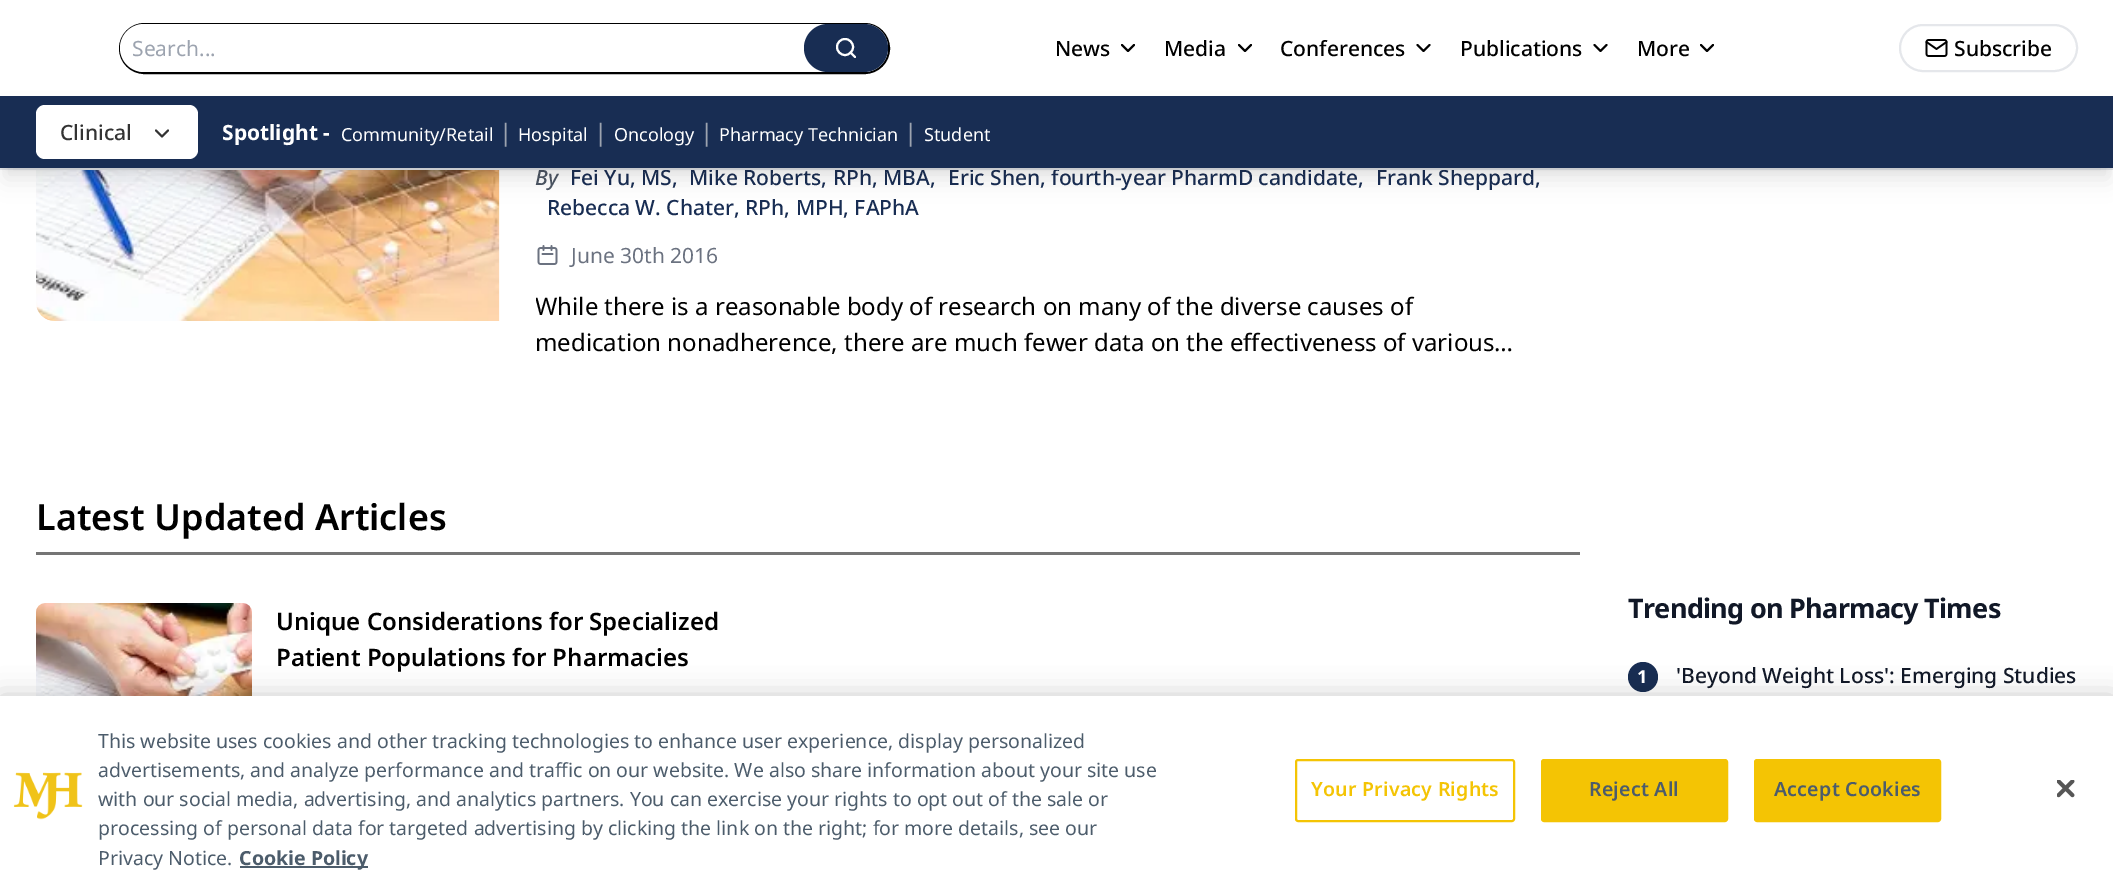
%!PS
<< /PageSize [2113 887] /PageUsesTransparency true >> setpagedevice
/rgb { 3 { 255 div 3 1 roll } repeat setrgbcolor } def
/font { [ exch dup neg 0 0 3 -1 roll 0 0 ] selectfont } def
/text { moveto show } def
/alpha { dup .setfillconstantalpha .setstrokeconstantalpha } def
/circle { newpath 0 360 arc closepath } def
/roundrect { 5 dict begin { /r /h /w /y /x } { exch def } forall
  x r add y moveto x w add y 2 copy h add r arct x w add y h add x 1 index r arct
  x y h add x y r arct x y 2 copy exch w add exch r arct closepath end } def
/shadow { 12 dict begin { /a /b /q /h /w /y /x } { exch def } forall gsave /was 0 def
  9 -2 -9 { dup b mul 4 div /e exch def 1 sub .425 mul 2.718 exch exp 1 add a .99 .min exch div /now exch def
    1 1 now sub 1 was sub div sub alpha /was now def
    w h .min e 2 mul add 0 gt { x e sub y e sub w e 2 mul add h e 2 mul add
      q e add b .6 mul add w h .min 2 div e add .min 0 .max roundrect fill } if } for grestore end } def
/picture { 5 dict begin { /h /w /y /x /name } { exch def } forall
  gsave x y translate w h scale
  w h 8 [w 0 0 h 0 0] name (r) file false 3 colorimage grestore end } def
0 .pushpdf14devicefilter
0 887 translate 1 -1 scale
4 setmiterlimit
255 255 255 rgb
0 0 2113 887 rectfill
0 0 0 rgb
2 setlinewidth
120 24 769 49 24.5 roundrect stroke
255 255 255 rgb
120 24 768 48 24 roundrect fill
24 45 83 rgb
804 24 84 48 24 roundrect fill
255 255 255 rgb
845 47 8 circle stroke
1 setlinecap
1 setlinejoin
855 57 moveto -4.5 -4.5 rlineto stroke
0 0 0 rgb
1122 45 moveto 6 6 rlineto 6 -6 rlineto stroke
1239 45 moveto 6 6 rlineto 6 -6 rlineto stroke
1417.5 45 moveto 6 6 rlineto 6 -6 rlineto stroke
1594.5 45 moveto 6 6 rlineto 6 -6 rlineto stroke
1701 45 moveto 6 6 rlineto 6 -6 rlineto stroke
229 231 235 rgb
0 setlinecap
0 setlinejoin
1900 25 177 46 23 roundrect stroke
(img_01.rgb) 1925 39 23 18 picture
(img_02.rgb) 36 170 464 151 picture
(img_03.rgb) 537 245 21 20 picture
117 117 117 rgb
36 552 1544 3 rectfill
(img_04.rgb) 36 603 216 93 picture
24 45 83 rgb
1643 677 15 circle fill
0 0 0 rgb
0 696 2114 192 0 13.5 0.2 shadow
255 255 255 rgb
0 696 2113 191 rectfill
(img_05.rgb) 13 772 70 48 picture
76 92 107 rgb
240 866 128 2 rectfill
244 196 4 rgb
1296 760 218 61 2 roundrect stroke
1542 760 185 61 2 roundrect gsave fill grestore
stroke
1755 760 185 61 2 roundrect gsave fill grestore
stroke
(img_06.rgb) 2057 780 18 18 picture
/NotoSans-Regular 21 font
156 163 175 rgb
(Search...) 132 56 text
/NotoSans-Medium 21 font
0 0 0 rgb
(News) 1055 56 text
(Media) 1164 56 text
(Conferences) 1280 56 text
(Publications) 1460 56 text
(More) 1637 56 text
(Subscribe) 1954 56 text
/NotoSans-MediumItalic 21 font
75 85 99 rgb
(By) 535 185 text
/NotoSans-Medium 21 font
24 45 83 rgb
(Fei Yu, MS,) 570 185 text
(Mike Roberts, RPh, MBA,) 689 185 text
(Eric Shen, fourth-year PharmD candidate,) 948 185 text
(Frank Sheppard,) 1376 185 text
229 231 235 rgb
0 168 2113 2 rectfill
0 0 0 rgb
5 116 2104 63 0 11 0.1 shadow
6 108 2102 60 0 4.5 0.1 shadow
24 45 83 rgb
0 96 2113 72 rectfill
255 255 255 rgb
36 105 162 54 9 roundrect fill
51 51 51 rgb
1 setlinecap
1 setlinejoin
156 130.5 moveto 6 6 rlineto 6 -6 rlineto stroke
/NotoSans-Regular 18 font
255 255 255 rgb
(Student) 924 141 text
/NotoSans-Regular 24 font
156 163 175 rgb
(|) 904 141 text
/NotoSans-Regular 18 font
255 255 255 rgb
(Pharmacy Technician) 719 141 text
/NotoSans-Regular 24 font
156 163 175 rgb
(|) 700 141 text
/NotoSans-Regular 18 font
255 255 255 rgb
(Oncology) 614 141 text
/NotoSans-Regular 24 font
156 163 175 rgb
(|) 594 141 text
/NotoSans-Regular 18 font
255 255 255 rgb
(Hospital) 518 141 text
/NotoSans-Regular 24 font
156 163 175 rgb
(|) 499 141 text
/NotoSans-Regular 18 font
255 255 255 rgb
(Community/Retail) 341 141 text
/NotoSans-Bold 21 font
(Spotlight -) 222 140 text
/NotoSans-Medium 21 font
51 51 51 rgb
(Clinical) 60 140 text
24 45 83 rgb
(Rebecca W. Chater, RPh, MPH, FAPhA) 547 215 text
/NotoSans-Regular 21 font
107 114 128 rgb
(June 30th 2016) 571 263 text
gsave
536 288 1008 72 rectclip
/NotoSans-Regular 24 font
0 0 0 rgb
(While there is a reasonable body of research on many of the diverse causes of) 535 315 text
grestore
/NotoSans-Regular 24 font
0 0 0 rgb
(medication nonadherence, there are much fewer data on the effectiveness of various…) 535 351 text
/NotoSans-SemiBold 36 font
(Latest Updated Articles) 36 530 text
/NotoSans-SemiBold 24 font
(Unique Considerations for Specialized) 276 630 text
(Patient Populations for Pharmacies) 276 666 text
/NotoSans-Bold 27 font
17 24 39 rgb
1628 618 moveto -0.7 0 (Trending on Pharmacy Times) ashow
/NotoSans-Bold 18 font
255 255 255 rgb
(1) 1637 683 text
/NotoSans-Medium 21 font
17 24 39 rgb
('Beyond Weight Loss': Emerging Studies) 1676 683 text
/NotoSans-Regular 19.5 font
76 92 107 rgb
(This website uses cookies and other tracking technologies to enhance user experience, display personalized) 98 748 text
(advertisements, and analyze performance and traffic on our website. We also share information about your site use) 98 777 text
(with our social media, advertising, and analytics partners. You can exercise your rights to opt out of the sale or) 98 806 text
(processing of personal data for targeted advertising by clicking the link on the right; for more details, see our) 98 835 text
(Privacy Notice.) 98 865 text
/NotoSans-Bold 19.5 font
(Cookie Policy) 239 865 text
/NotoSans-SemiBold 19.5 font
244 196 4 rgb
1311 796 moveto 0.25 0 (Your Privacy Rights) ashow
76 92 107 rgb
1589 796 moveto 0.25 0 (Reject All) ashow
1774 796 moveto 0.25 0 (Accept Cookies) ashow
.poppdf14devicefilter showpage
